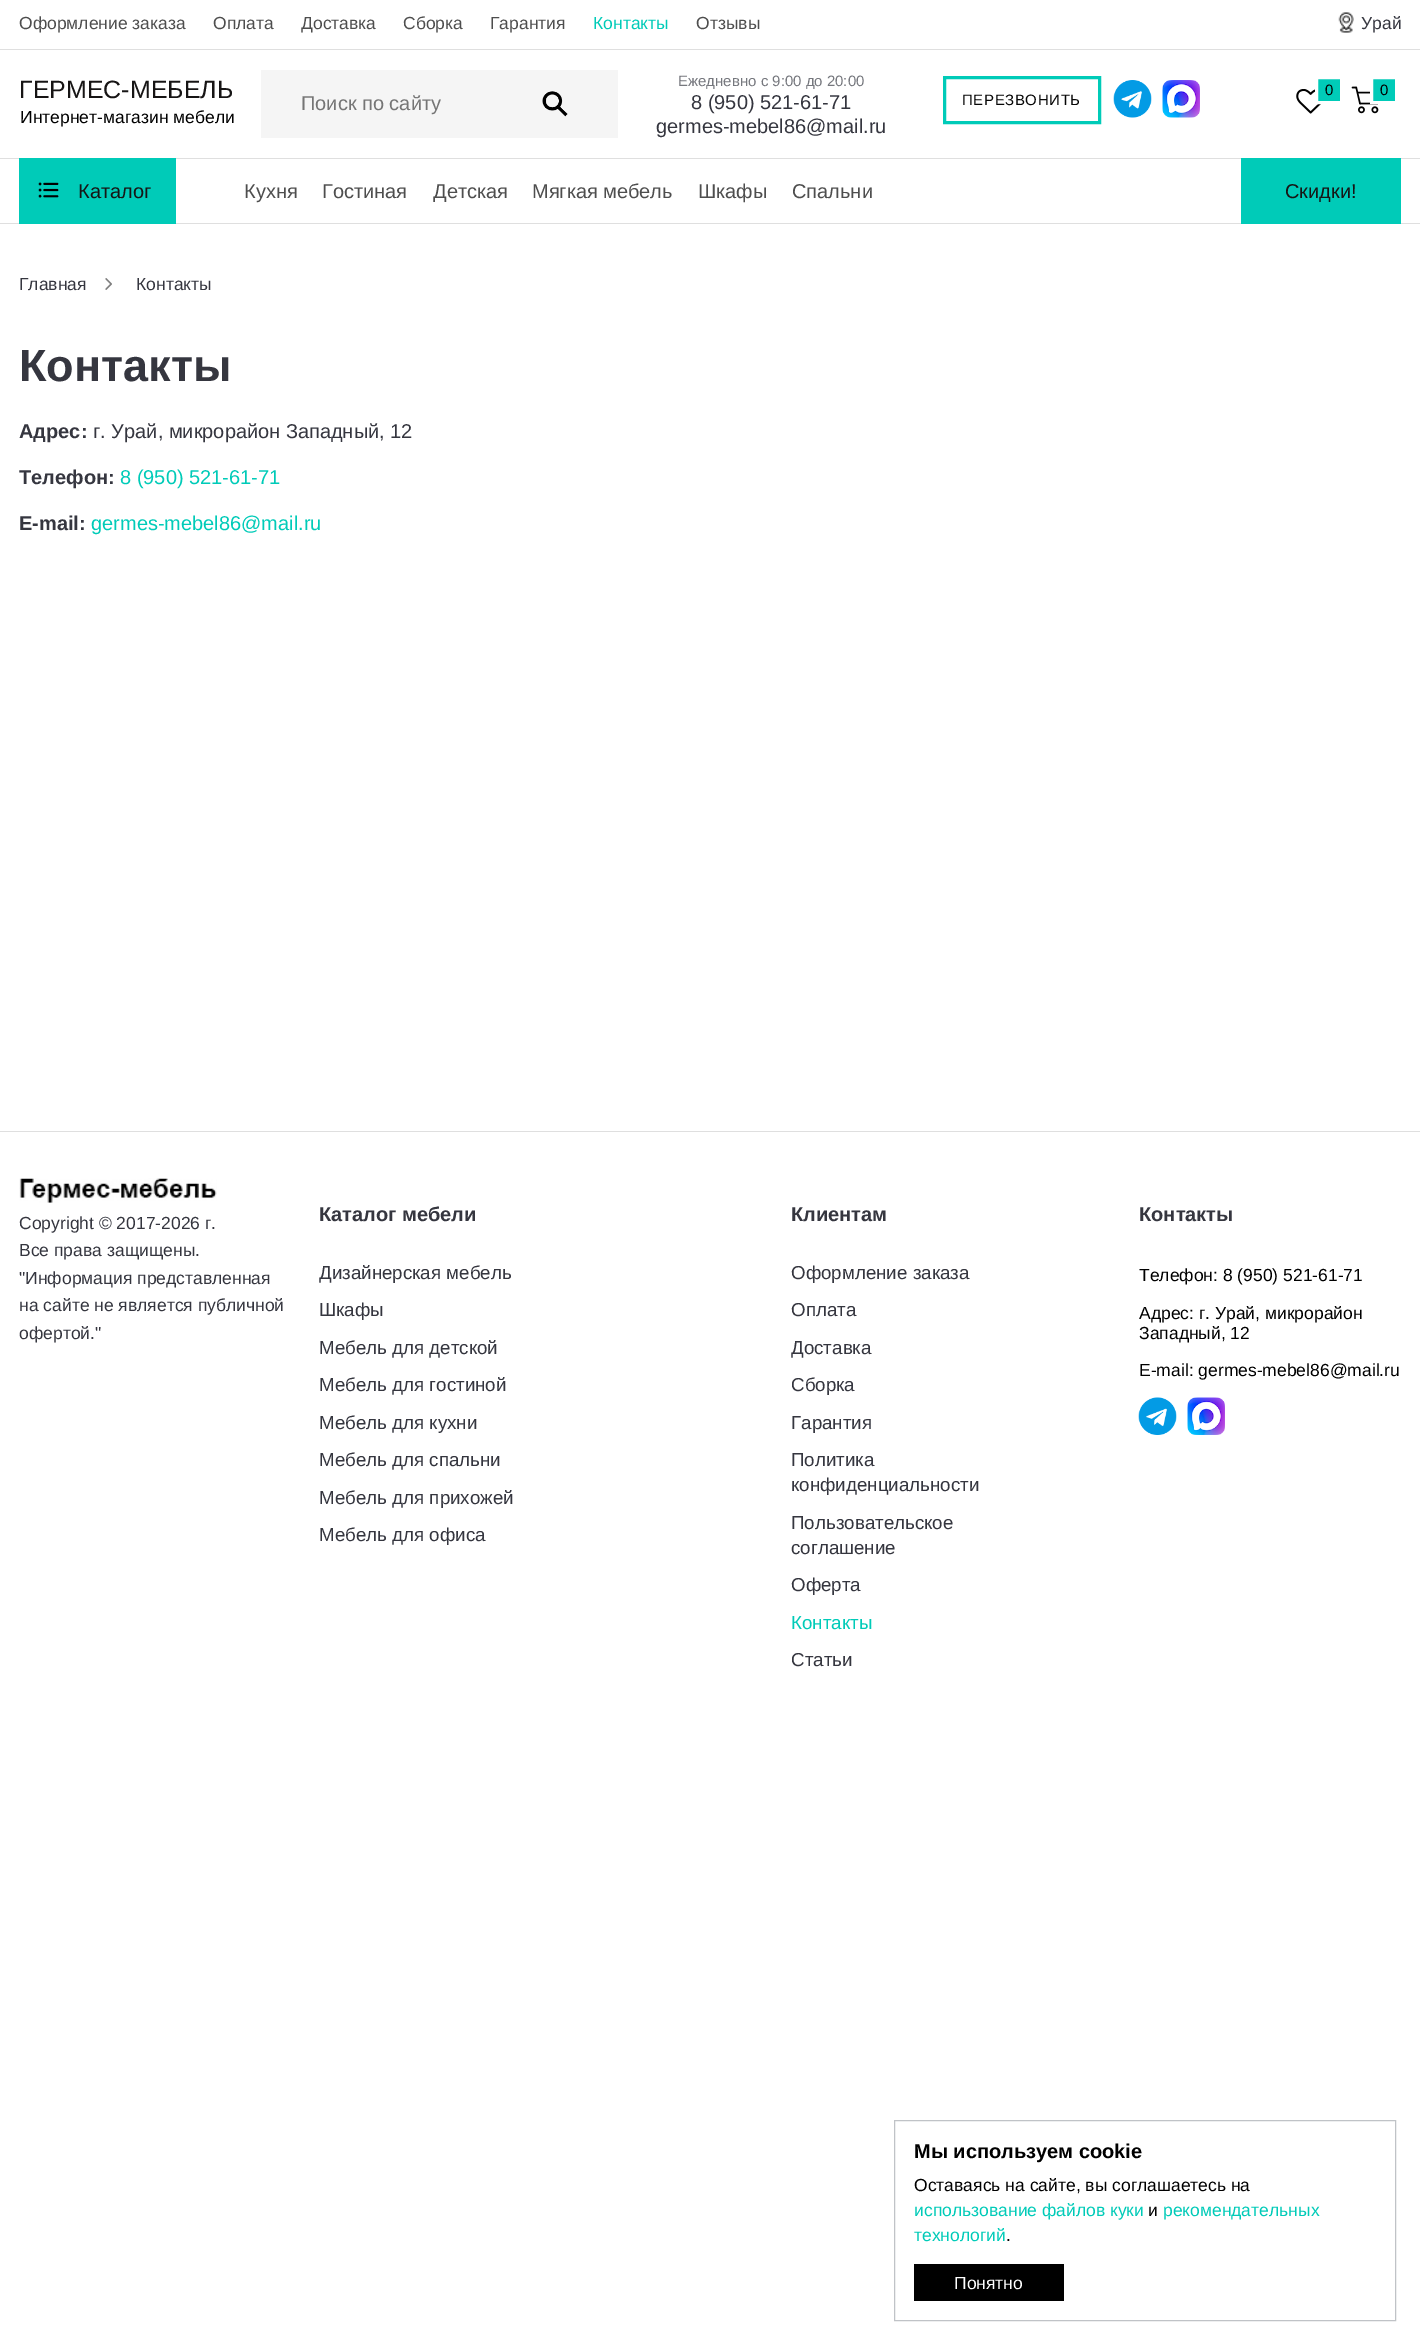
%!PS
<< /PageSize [1420 2344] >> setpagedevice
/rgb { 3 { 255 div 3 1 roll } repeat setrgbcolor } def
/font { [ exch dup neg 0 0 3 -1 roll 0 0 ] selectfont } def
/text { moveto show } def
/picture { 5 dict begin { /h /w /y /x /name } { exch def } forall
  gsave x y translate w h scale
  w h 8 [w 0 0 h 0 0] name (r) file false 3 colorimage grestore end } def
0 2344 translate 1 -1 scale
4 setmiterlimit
255 255 255 rgb
0 0 1420 2344 rectfill
223 223 223 rgb
0 49 1420 1 rectfill
(img_01.rgb) 1338 12 16 21 picture
(img_02.rgb) 1113 80 39 38 picture
(img_03.rgb) 1162 80 38 38 picture
(img_04.rgb) 1296 89 25 25 picture
0 203 184 rgb
1316.5 77.5 moveto 25 0 rlineto 0 25 rlineto -25 0 rlineto closepath gsave fill grestore
255 255 255 rgb
3 setlinewidth
stroke
(img_05.rgb) 1351 86 28 28 picture
0 203 184 rgb
1371.5 77.5 moveto 25 0 rlineto 0 25 rlineto -25 0 rlineto closepath gsave fill grestore
255 255 255 rgb
stroke
245 245 245 rgb
261 70 357 68 rectfill
(img_06.rgb) 542 91 26 26 picture
0 203 184 rgb
944.5 77.5 155 45 rectstroke
223 223 223 rgb
0 158 1420 1 rectfill
0 223 1420 1 rectfill
0 203 184 rgb
19 158 157 66 rectfill
(img_07.rgb) 38 182 21 16 picture
1241 158 160 66 rectfill
(img_08.rgb) 105 278 7 12 picture
223 223 223 rgb
0 1131 1420 1 rectfill
(img_09.rgb) 19 1178 198 25 picture
(img_10.rgb) 1138 1397 39 38 picture
(img_11.rgb) 1187 1397 38 38 picture
192 195 199 rgb
1 setlinewidth
894.5 2120.5 501 200 rectstroke
0 0 0 rgb
914 2264 150 37 rectfill
/LiberationSans-Regular 17.5 font
78 78 78 rgb
(Оформление заказа) 19 29 text
(Оплата) 213 29 text
(Доставка) 301 29 text
(Сборка) 403 29 text
(Гарантия) 490 29 text
0 203 184 rgb
(Контакты) 593 29 text
78 78 78 rgb
(Отзывы) 696 29 text
53 54 63 rgb
(Урай) 1361 29 text
/LiberationSans-Regular 25 font
23 21 21 rgb
(ГЕРМЕС-МЕБЕЛЬ) 19 98 text
/LiberationSans-Regular 17.5 font
0 0 0 rgb
(Интернет-магазин мебели) 20 123 text
/LiberationSans-Regular 15 font
118 120 126 rgb
(Ежедневно с 9:00 до 20:00) 678 86 text
/LiberationSans-Regular 20 font
53 54 63 rgb
(8 \(950\) 521-61-71) 691 109 text
(germes-mebel86@mail.ru) 656 133 text
/LiberationSans-Regular 15 font
0 0 0 rgb
(0) 1325 95 text
(0) 1380 95 text
/LiberationSans-Regular 20 font
117 117 117 rgb
(Поиск по сайту) 301 110 text
/LiberationSans-Regular 15 font
6 6 6 rgb
962 105 moveto 0.6 0 (ПЕРЕЗВОНИТЬ) ashow
/LiberationSans-Regular 20 font
23 21 21 rgb
(Каталог) 78 198 text
78 78 78 rgb
(Кухня) 244 198 text
(Гостиная) 322 198 text
(Детская) 433 198 text
(Мягкая мебель) 532 198 text
(Шкафы) 698 198 text
(Спальни) 792 198 text
23 21 21 rgb
(Скидки!) 1285 198 text
/LiberationSans-Regular 17.5 font
53 54 63 rgb
(Главная) 19 290 text
(Контакты) 136 290 text
/LiberationSans-Bold 45 font
(Контакты) 19 381 text
/LiberationSans-Bold 20 font
(Адрес:) 19 438 text
/LiberationSans-Regular 20 font
(г. Урай, микрорайон Западный, 12) 93 438 text
/LiberationSans-Bold 20 font
(Телефон:) 19 484 text
/LiberationSans-Regular 20 font
0 203 184 rgb
(8 \(950\) 521-61-71) 120 484 text
/LiberationSans-Bold 20 font
53 54 63 rgb
(E-mail:) 19 530 text
/LiberationSans-Regular 20 font
0 203 184 rgb
(germes-mebel86@mail.ru) 91 530 text
/LiberationSans-Regular 17.5 font
53 54 63 rgb
(Copyright © 2017-2026 г.) 19 1229 text
(Все права защищены.) 19 1256 text
("Информация представленная) 19 1284 text
(на сайте не является публичной) 19 1311 text
(офертой.") 19 1339 text
/LiberationSans-Bold 20 font
(Каталог мебели) 319 1221 text
/LiberationSans-Regular 18.75 font
(Дизайнерская мебель) 319 1279 text
(Шкафы) 319 1316 text
(Мебель для детской) 319 1354 text
(Мебель для гостиной) 319 1391 text
(Мебель для кухни) 319 1429 text
(Мебель для спальни) 319 1466 text
(Мебель для прихожей) 319 1504 text
(Мебель для офиса) 319 1541 text
/LiberationSans-Bold 20 font
(Клиентам) 791 1221 text
/LiberationSans-Regular 18.75 font
(Оформление заказа) 791 1279 text
(Оплата) 791 1316 text
(Доставка) 791 1354 text
(Сборка) 791 1391 text
(Гарантия) 791 1429 text
(Политика) 791 1466 text
(конфиденциальности) 791 1491 text
(Пользовательское) 791 1529 text
(соглашение) 791 1554 text
(Оферта) 791 1591 text
0 203 184 rgb
(Контакты) 791 1629 text
53 54 63 rgb
(Статьи) 791 1666 text
/LiberationSans-Bold 20 font
(Контакты) 1139 1221 text
/LiberationSans-Regular 17.5 font
0 0 0 rgb
(Телефон: 8 \(950\) 521-61-71) 1139 1281 text
(Адрес: г. Урай, микрорайон) 1139 1319 text
(Западный, 12) 1139 1339 text
(E-mail: germes-mebel86@mail.ru) 1139 1376 text
/LiberationSans-Bold 20 font
(Мы используем cookie) 914 2158 text
/LiberationSans-Regular 17.5 font
(Оставаясь на сайте, вы соглашаетесь на) 914 2191 text
0 203 184 rgb
(использование файлов куки) 914 2216 text
0 0 0 rgb
(и) 1148 2216 text
0 203 184 rgb
(рекомендательных) 1163 2216 text
(технологий) 914 2241 text
0 0 0 rgb
(.) 1006 2241 text
255 255 255 rgb
(Понятно) 954 2289 text
showpage
